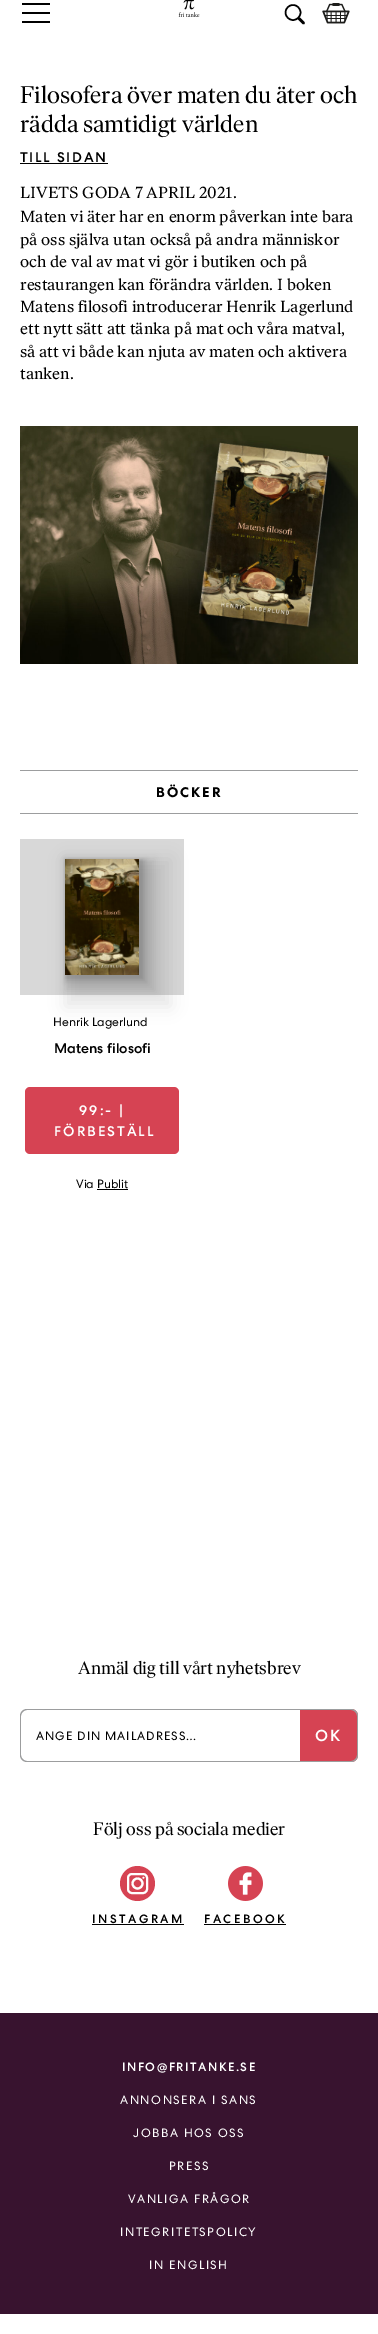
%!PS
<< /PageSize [378 2334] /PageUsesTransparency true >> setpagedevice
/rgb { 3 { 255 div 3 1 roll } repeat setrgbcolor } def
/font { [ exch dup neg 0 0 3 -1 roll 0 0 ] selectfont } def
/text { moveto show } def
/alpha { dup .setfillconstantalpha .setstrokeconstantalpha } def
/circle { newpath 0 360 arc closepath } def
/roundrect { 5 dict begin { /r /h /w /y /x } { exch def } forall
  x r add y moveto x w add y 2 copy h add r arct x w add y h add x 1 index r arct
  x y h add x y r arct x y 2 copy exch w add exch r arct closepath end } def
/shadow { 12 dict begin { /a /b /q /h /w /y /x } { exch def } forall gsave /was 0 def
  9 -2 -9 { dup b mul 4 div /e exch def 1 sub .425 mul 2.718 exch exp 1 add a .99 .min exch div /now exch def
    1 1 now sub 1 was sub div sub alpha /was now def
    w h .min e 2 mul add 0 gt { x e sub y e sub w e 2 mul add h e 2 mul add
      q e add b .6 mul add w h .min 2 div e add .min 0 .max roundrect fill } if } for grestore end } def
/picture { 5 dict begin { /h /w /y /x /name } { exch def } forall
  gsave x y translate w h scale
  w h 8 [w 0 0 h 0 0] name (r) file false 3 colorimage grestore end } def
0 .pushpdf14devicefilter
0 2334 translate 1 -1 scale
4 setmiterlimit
255 255 255 rgb
0 0 378 2334 rectfill
0 0 0 rgb
22 3 28 2 rectfill
22 12 28 2 rectfill
22 21 28 2 rectfill
(img_01.rgb) 178 0 22 17 picture
1.5 setlinewidth
293 12.5 7.5 circle stroke
2.5 setlinewidth
1 setlinecap
299 18.5 moveto 4.5 4.5 rlineto stroke
(img_02.rgb) 322 3 28 21 picture
20 163 88 1 rectfill
(img_03.rgb) 20 426 338 238 picture
156 157 158 rgb
20 770 338 1 rectfill
20 813 338 1 rectfill
216 216 216 rgb
20 839 164 156 rectfill
0 0 0 rgb
65 859 106 148 0 8 0.09 shadow
65 859 90 132 0 4 0.09 shadow
65 859 82 124 0 2 0.09 shadow
65 859 78 120 0 1 0.09 shadow
(img_04.rgb) 65 859 74 116 picture
214 67 83 rgb
25 1087 154 67 5 roundrect fill
0 0 0 rgb
97 1189 31 1 rectfill
156 157 158 rgb
27 1709 moveto 273 0 rlineto 0 53 rlineto -273 0 rlineto -4 0 -7 -3 -7 -7 rcurveto 0 -39 rlineto 0 -4 3 -7 7 -7 rcurveto closepath 27 1710 moveto 273 0 rlineto 0 51 rlineto -273 0 rlineto -3 0 -6 -3 -6 -6 rcurveto 0 -39 rlineto 0 -3 3 -6 6 -6 rcurveto closepath eofill
214 67 83 rgb
300 1709 moveto 51 0 rlineto 4 0 7 3 7 7 rcurveto 0 39 rlineto 0 4 -3 7 -7 7 rcurveto -51 0 rlineto closepath fill
156 157 158 rgb
300 1709 moveto 51 0 rlineto 4 0 7 3 7 7 rcurveto 0 39 rlineto 0 4 -3 7 -7 7 rcurveto -51 0 rlineto closepath 300 1710 moveto 51 0 rlineto 3 0 6 3 6 6 rcurveto 0 39 rlineto 0 3 -3 6 -6 6 rcurveto -51 0 rlineto closepath eofill
214 67 83 rgb
137.5 1883.5 17.5 circle fill
255 255 255 rgb
2 setlinewidth
0 setlinecap
128 1874 19 19 4 roundrect stroke
2.1 setlinewidth
137.5 1883.5 5 circle stroke
143.4 1877.7 0.9 circle fill
0 0 0 rgb
92 1924 92 1 rectfill
(img_05.rgb) 228 1866 35 35 picture
204 1924 82 1 rectfill
56 19 47 rgb
0 2013 378 301 rectfill
/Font-Regular 24 font
0 0 0 rgb
(Filosofera över maten du äter och) 20 103 text
(rädda samtidigt världen) 20 132 text
/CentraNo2-Medium 14 font
20 162 moveto 1.75 0 (TILL SIDAN) ashow
/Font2-Regular 16 font
(LIVETS GODA 7 APRIL 2021.) 20 198 text
(Maten vi äter har en enorm påverkan inte bara) 20 222 text
(på oss själva utan också på andra människor) 20 245 text
(och de val av mat vi gör i butiken och på) 20 267 text
(restaurangen kan förändra världen. I boken) 20 290 text
(Matens filosofi introducerar Henrik Lagerlund) 20 312 text
(ett nytt sätt att tänka på mat och våra matval,) 20 334 text
(så att vi både kan njuta av maten och aktivera) 20 357 text
(tanken.) 20 379 text
/CentraNo2-Bold 14 font
156 797 moveto 2 0 (BÖCKER) ashow
/CentraNo2-Regular 12 font
(Henrik Lagerlund) 53 1026 text
/CentraNo2-Medium 14 font
(Matens filosofi) 54 1053 text
255 255 255 rgb
79 1115 moveto 2 0 (99:- |) ashow
54 1136 moveto 2 0 (FÖRBESTÄLL) ashow
/CentraNo2-Regular 12 font
0 0 0 rgb
(Via Publit) 76 1188 text
/Font-Regular 18 font
(Anmäl dig till vårt nyhetsbrev) 78 1674 text
/CentraNo2-Regular 12 font
36 1740 moveto 1 0 (ANGE DIN MAILADRESS…) ashow
/CentraNo2-Medium 16 font
255 255 255 rgb
315 1741 moveto 2 0 (OK) ashow
/Font-Regular 18 font
0 0 0 rgb
(Följ oss på sociala medier) 93 1835 text
/CentraNo2-Medium 12 font
92 1923 moveto 2.5 0 (INSTAGRAM) ashow
204 1923 moveto 2.5 0 (FACEBOOK) ashow
255 255 255 rgb
122 2071 moveto 1.5 0 (INFO@FRITANKE.SE) ashow
/CentraNo2-Regular 12 font
120 2104 moveto 1.5 0 (ANNONSERA I SANS) ashow
133 2137 moveto 1.5 0 (JOBBA HOS OSS) ashow
169 2170 moveto 1.5 0 (PRESS) ashow
128 2203 moveto 1.5 0 (VANLIGA FRÅGOR) ashow
120 2236 moveto 1.5 0 (INTEGRITETSPOLICY) ashow
149 2269 moveto 1.5 0 (IN ENGLISH) ashow
.poppdf14devicefilter showpage
